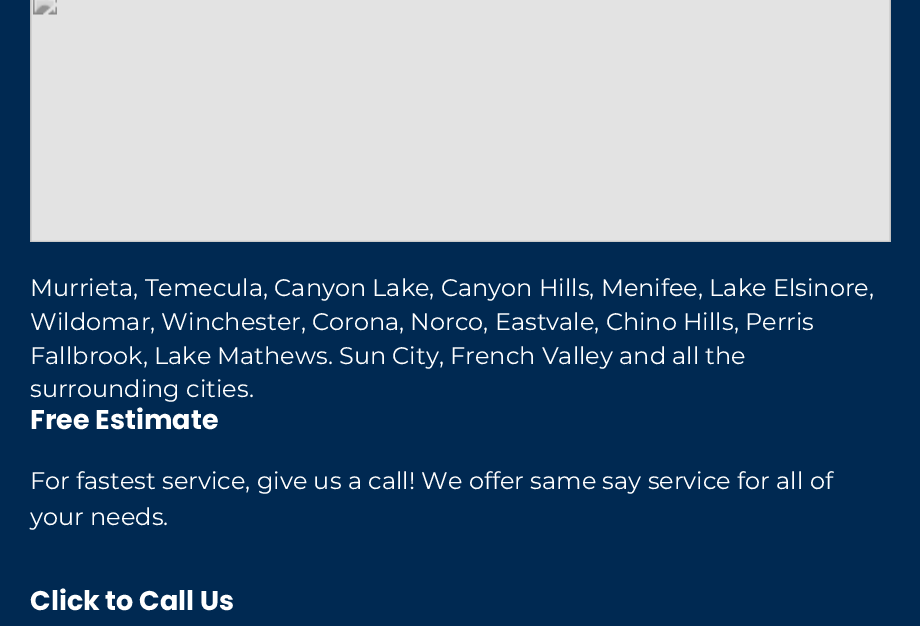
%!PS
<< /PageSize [920 626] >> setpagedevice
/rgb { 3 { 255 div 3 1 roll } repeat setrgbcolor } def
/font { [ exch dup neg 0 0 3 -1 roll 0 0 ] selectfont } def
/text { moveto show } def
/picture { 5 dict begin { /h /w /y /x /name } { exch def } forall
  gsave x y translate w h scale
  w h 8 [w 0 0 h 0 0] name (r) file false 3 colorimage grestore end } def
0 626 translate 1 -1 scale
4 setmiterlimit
0 41 82 rgb
0 0 920 626 rectfill
(img_01.rgb) 30 0 861 242 picture
/Montserrat-Regular 24 font
255 255 255 rgb
(Murrieta, Temecula, Canyon Lake, Canyon Hills, Menifee, Lake Elsinore,) 30 296 text
(Wildomar, Winchester, Corona, Norco, Eastvale, Chino Hills, Perris) 30 330 text
(Fallbrook, Lake Mathews. Sun City, French Valley and all the) 30 364 text
(surrounding cities.) 30 397 text
/Poppins-Bold 27 font
(Free Estimate) 30 429 text
/Montserrat-Regular 24 font
(For fastest service, give us a call! We offer same say service for all of) 30 489 text
(your needs.) 30 525 text
/Poppins-Bold 27 font
(Click to Call Us) 30 610 text
showpage
